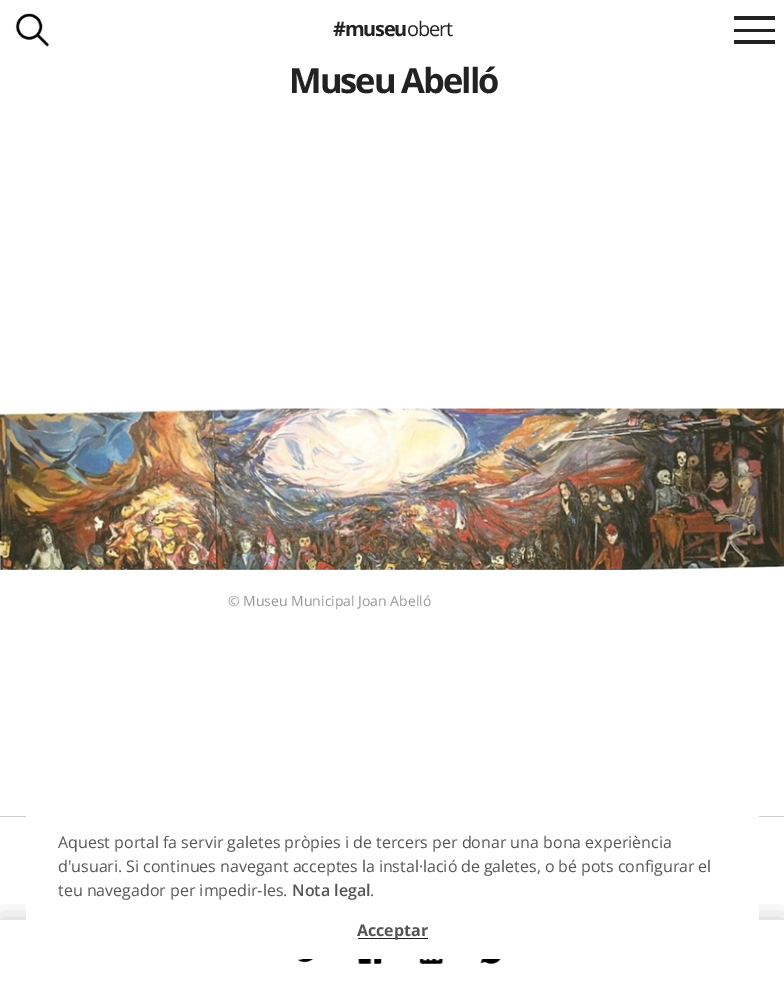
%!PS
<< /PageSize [784 985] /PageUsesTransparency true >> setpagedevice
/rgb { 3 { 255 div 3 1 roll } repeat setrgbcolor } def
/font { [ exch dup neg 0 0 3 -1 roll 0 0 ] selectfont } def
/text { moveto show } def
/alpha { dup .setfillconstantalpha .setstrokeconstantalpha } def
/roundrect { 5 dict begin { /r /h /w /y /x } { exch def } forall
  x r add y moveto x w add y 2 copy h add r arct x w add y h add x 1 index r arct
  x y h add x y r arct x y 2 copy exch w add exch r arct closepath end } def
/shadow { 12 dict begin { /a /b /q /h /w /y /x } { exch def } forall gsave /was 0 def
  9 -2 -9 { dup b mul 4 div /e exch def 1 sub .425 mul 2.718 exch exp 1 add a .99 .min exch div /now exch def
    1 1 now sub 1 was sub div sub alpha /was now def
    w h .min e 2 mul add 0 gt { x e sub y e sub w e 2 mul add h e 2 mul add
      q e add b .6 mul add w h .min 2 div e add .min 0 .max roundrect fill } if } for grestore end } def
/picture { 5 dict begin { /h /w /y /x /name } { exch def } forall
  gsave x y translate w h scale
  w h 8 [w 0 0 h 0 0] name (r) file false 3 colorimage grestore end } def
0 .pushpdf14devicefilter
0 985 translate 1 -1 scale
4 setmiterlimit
255 255 255 rgb
0 0 784 985 rectfill
(img_01.rgb) 15 13 35 34 picture
34 34 34 rgb
734 29 41 3 rectfill
734 16 41 4 rectfill
734 40 41 4 rectfill
(img_02.rgb) 0 408 784 162 picture
204 204 204 rgb
0 816 784 1 rectfill
gsave
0 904 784 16 rectclip
0 0 0 rgb
0 920 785 65 0 12.5 0.2 shadow
grestore
(img_03.rgb) 297 959 17 4 picture
(img_04.rgb) 358 959 24 5 picture
(img_05.rgb) 419 959 25 5 picture
(img_06.rgb) 480 959 21 5 picture
255 255 255 rgb
26 816 733 104 rectfill
34 34 34 rgb
358 938 70 1 rectfill
/OpenSans-Bold 20 font
333 36 moveto -1.25 0 (#museu) ashow
/OpenSans-Regular 20 font
407 36 moveto -1.25 0 (obert) ashow
/OpenSans-Bold 34.5 font
289 93 moveto -2 0 (Museu Abelló) ashow
/OpenSans-Regular 14 font
152 152 152 rgb
(© Museu Municipal Joan Abelló) 228 606 text
/OpenSans-Regular 16 font
85 85 85 rgb
(Aquest portal fa servir galetes pròpies i de tercers per donar una bona experiència) 58 848 text
58 872 moveto -0.25 0 32 (d'usuari. Si continues navegant acceptes la instal·lació de galetes, o bé pots configurar el) widthshow
(teu navegador per impedir-les.) 58 896 text
/OpenSans-SemiBold 16 font
(Nota legal) 292 896 text
/OpenSans-Regular 16 font
(.) 370 896 text
/OpenSans-Bold 16 font
(Acceptar) 357 936 text
.poppdf14devicefilter showpage
